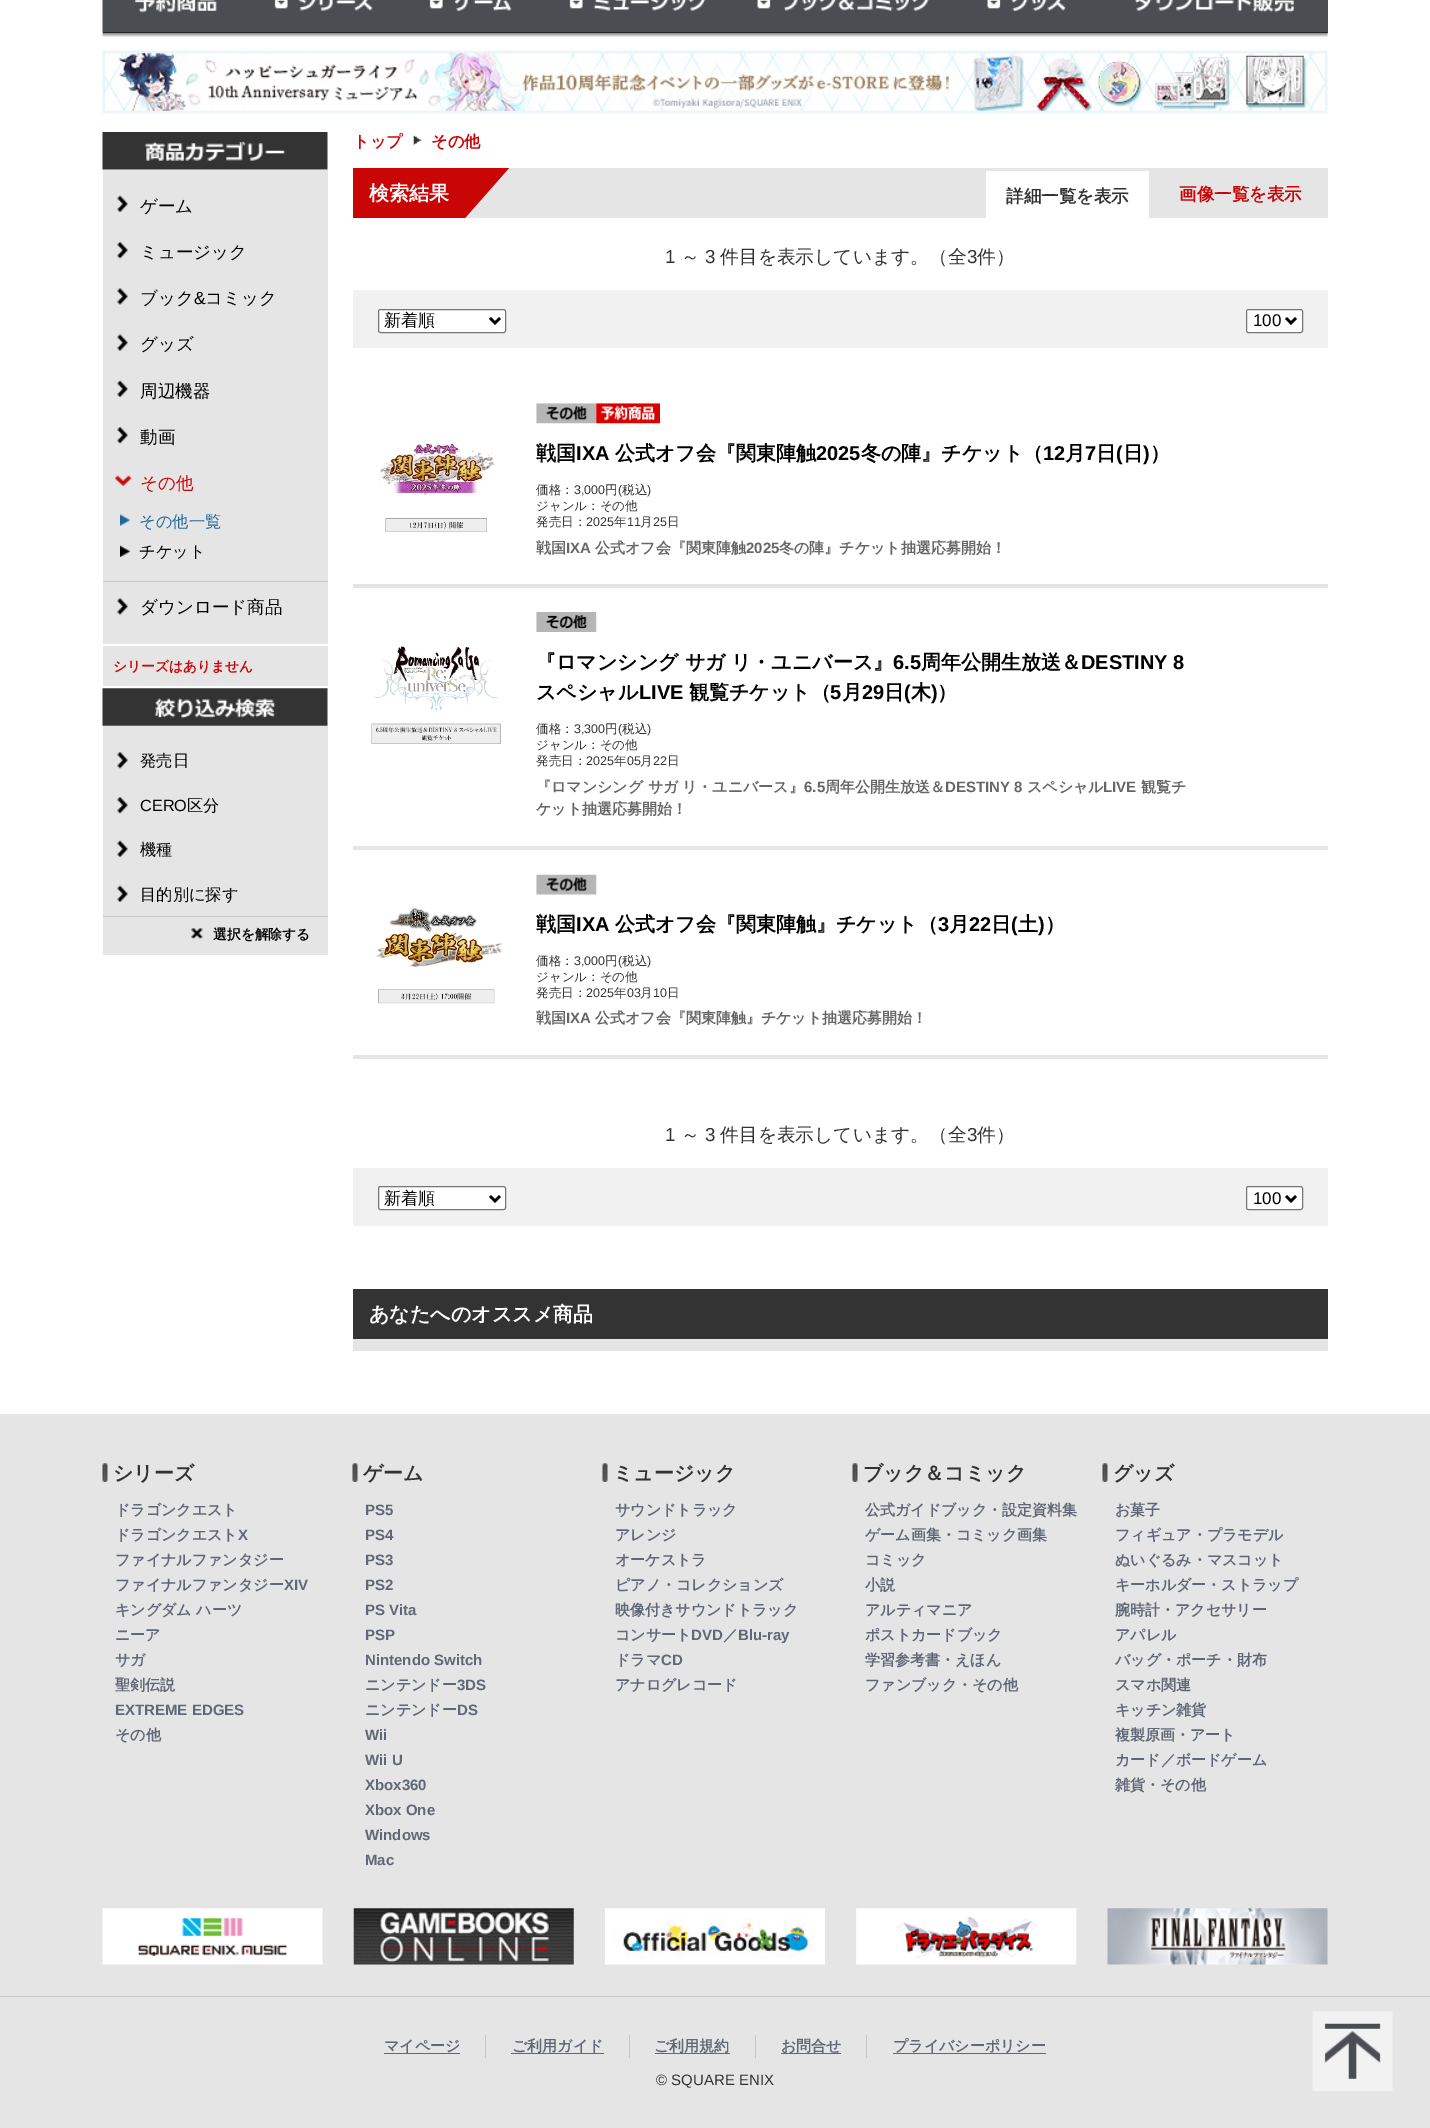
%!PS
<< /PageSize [1430 2128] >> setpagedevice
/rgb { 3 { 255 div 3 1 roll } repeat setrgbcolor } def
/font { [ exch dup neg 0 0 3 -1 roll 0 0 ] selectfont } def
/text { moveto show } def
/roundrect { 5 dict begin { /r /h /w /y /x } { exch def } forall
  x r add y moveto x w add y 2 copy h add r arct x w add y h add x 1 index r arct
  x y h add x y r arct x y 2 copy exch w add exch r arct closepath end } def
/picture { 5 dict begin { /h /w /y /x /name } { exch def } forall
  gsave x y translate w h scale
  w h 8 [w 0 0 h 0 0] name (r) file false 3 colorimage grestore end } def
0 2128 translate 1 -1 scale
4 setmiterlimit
255 255 255 rgb
0 0 1430 2128 rectfill
74 77 82 rgb
103 0 1225 33 rectfill
(img_01.rgb) 102 0 115 32 picture
(img_02.rgb) 274 0 99 11 picture
(img_03.rgb) 429 0 83 11 picture
(img_04.rgb) 569 0 137 11 picture
(img_05.rgb) 757 0 172 11 picture
(img_06.rgb) 987 0 79 11 picture
(img_07.rgb) 1135 0 160 13 picture
(img_08.rgb) 102 32 1226 5 picture
(img_09.rgb) 102 50 1226 64 picture
(img_10.rgb) 102 132 226 38 picture
229 229 229 rgb
103 170 225 474 rectfill
(img_11.rgb) 117 195 11 17 picture
(img_12.rgb) 117 242 11 17 picture
(img_13.rgb) 117 288 11 17 picture
(img_14.rgb) 117 334 11 17 picture
(img_11.rgb) 117 380 11 17 picture
(img_12.rgb) 117 427 11 17 picture
(img_15.rgb) 115 475 17 11 picture
200 200 200 rgb
103 581 225 1 rectfill
(img_16.rgb) 120 514 10 12 picture
(img_17.rgb) 120 545 10 12 picture
(img_13.rgb) 117 598 11 17 picture
229 229 229 rgb
103 646 225 40 rectfill
(img_18.rgb) 102 688 226 38 picture
103 726 225 190 rectfill
(img_12.rgb) 117 752 11 17 picture
(img_12.rgb) 117 797 11 17 picture
(img_11.rgb) 117 840 11 17 picture
(img_11.rgb) 117 885 11 17 picture
103 917 225 38 rectfill
200 200 200 rgb
103 916 225 1 rectfill
(img_19.rgb) 191 928 12 11 picture
(img_20.rgb) 413 135 9 10 picture
229 229 229 rgb
465 168 863 50 rectfill
201 5 5 rgb
353 168 112 50 rectfill
465 168 moveto 44 0 rlineto -44 50 rlineto closepath fill
255 255 255 rgb
986 171 163 47 rectfill
241 241 241 rgb
353 290 975 58 rectfill
255 255 255 rgb
378.5 309.5 127 23 2 roundrect gsave fill grestore
118 118 118 rgb
stroke
0 0 0 rgb
2.5 setlinewidth
490 318 moveto 5 5 rlineto 5 -5 rlineto stroke
255 255 255 rgb
1246.5 309.5 56 23 2 roundrect gsave fill grestore
118 118 118 rgb
1 setlinewidth
stroke
0 0 0 rgb
2.5 setlinewidth
1286 318 moveto 5 5 rlineto 5 -5 rlineto stroke
229 229 229 rgb
353 584 975 4 rectfill
(img_21.rgb) 378 443 121 89 picture
(img_22.rgb) 536 403 61 21 picture
(img_23.rgb) 596 403 64 21 picture
353 846 975 4 rectfill
(img_24.rgb) 371 646 130 98 picture
(img_25.rgb) 536 612 61 20 picture
353 1055 975 4 rectfill
(img_26.rgb) 376 907 127 97 picture
(img_27.rgb) 536 874 61 21 picture
241 241 241 rgb
353 1168 975 58 rectfill
255 255 255 rgb
378.5 1186.5 127 23 2 roundrect gsave fill grestore
118 118 118 rgb
1 setlinewidth
stroke
0 0 0 rgb
2.5 setlinewidth
490 1196 moveto 5 5 rlineto 5 -5 rlineto stroke
255 255 255 rgb
1246.5 1186.5 56 23 2 roundrect gsave fill grestore
118 118 118 rgb
1 setlinewidth
stroke
0 0 0 rgb
2.5 setlinewidth
1286 1196 moveto 5 5 rlineto 5 -5 rlineto stroke
51 51 51 rgb
353 1289 975 50 rectfill
229 229 229 rgb
353 1339 975 12 rectfill
0 1414 1430 582 rectfill
(img_28.rgb) 102 1463 6 19 picture
(img_28.rgb) 352 1463 6 19 picture
(img_28.rgb) 602 1463 6 19 picture
(img_28.rgb) 852 1463 6 19 picture
(img_28.rgb) 1102 1463 6 19 picture
(img_29.rgb) 102 1908 221 57 picture
(img_30.rgb) 353 1908 221 57 picture
(img_31.rgb) 605 1908 220 57 picture
(img_32.rgb) 856 1908 221 57 picture
(img_33.rgb) 1107 1908 221 57 picture
0 1997 1430 131 rectfill
198 198 198 rgb
0 1996 1430 1 rectfill
485 2035 1 23 rectfill
96 103 118 rgb
384 2053 76 1 rectfill
198 198 198 rgb
629 2035 1 23 rectfill
96 103 118 rgb
511 2053 93 1 rectfill
198 198 198 rgb
755 2035 1 23 rectfill
96 103 118 rgb
655 2053 75 1 rectfill
198 198 198 rgb
866 2035 1 23 rectfill
96 103 118 rgb
781 2053 60 1 rectfill
893 2053 153 1 rectfill
(img_34.rgb) 1312 2011 81 80 picture
/WenQuanYiZenHei-Medium 17.5 font
0 0 0 rgb
(ゲーム) 140 212 text
(ミュージック) 140 258 text
(ブック) 140 304 text
/LiberationSans-Regular 17.5 font
(&) 194 304 text
/WenQuanYiZenHei-Medium 17.5 font
(コミック) 205 304 text
(グッズ) 140 350 text
(周辺機器) 140 397 text
(動画) 140 443 text
201 5 5 rgb
(その他) 140 489 text
/WenQuanYiZenHei-Medium 16.25 font
32 103 153 rgb
(その他一覧) 139 527 text
0 0 0 rgb
(チケット) 139 557 text
/WenQuanYiZenHei-Medium 17.5 font
(ダウンロード商品) 140 613 text
/WenQuanYiZenHei-Bold 13.75 font
201 5 5 rgb
(シリーズはありません) 113 671 text
/WenQuanYiZenHei-Medium 16.25 font
0 0 0 rgb
(発売日) 140 766 text
/LiberationSans-Regular 16.25 font
(CERO) 140 811 text
/WenQuanYiZenHei-Medium 16.25 font
(区分) 187 811 text
(機種) 140 855 text
(目的別に探す) 140 900 text
/WenQuanYiZenHei-Bold 13.75 font
(選択を解除する) 213 939 text
/WenQuanYiZenHei-Bold 16.25 font
201 5 5 rgb
(トップ) 353 147 text
(その他) 431 147 text
/WenQuanYiZenHei-Bold 20 font
255 255 255 rgb
(検索結果) 369 200 text
/WenQuanYiZenHei-Bold 17.5 font
51 51 51 rgb
(詳細一覧を表示) 1006 202 text
201 5 5 rgb
(画像一覧を表示) 1179 200 text
/LiberationSans-Regular 18.75 font
51 51 51 rgb
(1) 665 263 text
/WenQuanYiZenHei-Medium 18.75 font
(～) 681 263 text
/LiberationSans-Regular 18.75 font
(3) 705 263 text
/WenQuanYiZenHei-Medium 18.75 font
(件目を表示しています。（全) 720 263 text
/LiberationSans-Regular 18.75 font
(3) 967 263 text
/WenQuanYiZenHei-Medium 18.75 font
(件）) 977 263 text
/WenQuanYiZenHei-Medium 17 font
0 0 0 rgb
(新着順) 384 326 text
/LiberationSans-Regular 17 font
(100) 1253 326 text
/WenQuanYiZenHei-Bold 20 font
(戦国) 536 460 text
/LiberationSans-Bold 20 font
(IXA) 576 460 text
/WenQuanYiZenHei-Bold 20 font
(公式オフ会『関東陣触) 615 460 text
/LiberationSans-Bold 20 font
(2025) 816 460 text
/WenQuanYiZenHei-Bold 20 font
(冬の陣』チケット（) 861 460 text
/LiberationSans-Bold 20 font
(12) 1043 460 text
/WenQuanYiZenHei-Bold 20 font
(月) 1065 460 text
/LiberationSans-Bold 20 font
(7) 1085 460 text
/WenQuanYiZenHei-Bold 20 font
(日) 1096 460 text
/LiberationSans-Bold 20 font
(\() 1116 460 text
/WenQuanYiZenHei-Bold 20 font
(日) 1123 460 text
/LiberationSans-Bold 20 font
(\)) 1143 460 text
/WenQuanYiZenHei-Bold 20 font
(）) 1150 460 text
/WenQuanYiZenHei-Medium 12.5 font
51 51 51 rgb
(価格：) 536 494 text
/LiberationSans-Regular 12.5 font
(3,000) 574 494 text
/WenQuanYiZenHei-Medium 12.5 font
(円) 605 494 text
/LiberationSans-Regular 12.5 font
(\() 618 494 text
/WenQuanYiZenHei-Medium 12.5 font
(税込) 622 494 text
/LiberationSans-Regular 12.5 font
(\)) 647 494 text
/WenQuanYiZenHei-Medium 12.5 font
(ジャンル：その他) 536 510 text
(発売日：) 536 526 text
/LiberationSans-Regular 12.5 font
(2025) 586 526 text
/WenQuanYiZenHei-Medium 12.5 font
(年) 614 526 text
/LiberationSans-Regular 12.5 font
(11) 627 526 text
/WenQuanYiZenHei-Medium 12.5 font
(月) 640 526 text
/LiberationSans-Regular 12.5 font
(25) 653 526 text
/WenQuanYiZenHei-Medium 12.5 font
(日) 667 526 text
/WenQuanYiZenHei-Bold 15 font
102 102 102 rgb
(戦国) 536 553 text
/LiberationSans-Bold 15 font
(IXA) 566 553 text
/WenQuanYiZenHei-Bold 15 font
(公式オフ会『関東陣触) 595 553 text
/LiberationSans-Bold 15 font
(2025) 746 553 text
/WenQuanYiZenHei-Bold 15 font
(冬の陣』チケット抽選応募開始！) 779 553 text
/WenQuanYiZenHei-Bold 20 font
0 0 0 rgb
(『ロマンシング) 536 669 text
(サガ) 685 669 text
(リ・ユニバース』) 731 669 text
/LiberationSans-Bold 20 font
(6.5) 893 669 text
/WenQuanYiZenHei-Bold 20 font
(周年公開生放送＆) 921 669 text
/LiberationSans-Bold 20 font
(DESTINY 8) 1081 669 text
/WenQuanYiZenHei-Bold 20 font
(スペシャル) 536 699 text
/LiberationSans-Bold 20 font
(LIVE) 639 699 text
/WenQuanYiZenHei-Bold 20 font
(観覧チケット（) 689 699 text
/LiberationSans-Bold 20 font
(5) 830 699 text
/WenQuanYiZenHei-Bold 20 font
(月) 842 699 text
/LiberationSans-Bold 20 font
(29) 862 699 text
/WenQuanYiZenHei-Bold 20 font
(日) 884 699 text
/LiberationSans-Bold 20 font
(\() 904 699 text
/WenQuanYiZenHei-Bold 20 font
(木) 911 699 text
/LiberationSans-Bold 20 font
(\)) 931 699 text
/WenQuanYiZenHei-Bold 20 font
(）) 937 699 text
/WenQuanYiZenHei-Medium 12.5 font
51 51 51 rgb
(価格：) 536 733 text
/LiberationSans-Regular 12.5 font
(3,300) 574 733 text
/WenQuanYiZenHei-Medium 12.5 font
(円) 605 733 text
/LiberationSans-Regular 12.5 font
(\() 618 733 text
/WenQuanYiZenHei-Medium 12.5 font
(税込) 622 733 text
/LiberationSans-Regular 12.5 font
(\)) 647 733 text
/WenQuanYiZenHei-Medium 12.5 font
(ジャンル：その他) 536 749 text
(発売日：) 536 765 text
/LiberationSans-Regular 12.5 font
(2025) 586 765 text
/WenQuanYiZenHei-Medium 12.5 font
(年) 614 765 text
/LiberationSans-Regular 12.5 font
(05) 627 765 text
/WenQuanYiZenHei-Medium 12.5 font
(月) 640 765 text
/LiberationSans-Regular 12.5 font
(22) 653 765 text
/WenQuanYiZenHei-Medium 12.5 font
(日) 667 765 text
/WenQuanYiZenHei-Bold 15 font
102 102 102 rgb
(『ロマンシング) 536 792 text
(サガ) 648 792 text
(リ・ユニバース』) 682 792 text
/LiberationSans-Bold 15 font
(6.5) 804 792 text
/WenQuanYiZenHei-Bold 15 font
(周年公開生放送＆) 825 792 text
/LiberationSans-Bold 15 font
(DESTINY 8) 945 792 text
/WenQuanYiZenHei-Bold 15 font
(スペシャル) 1027 792 text
/LiberationSans-Bold 15 font
(LIVE) 1103 792 text
/WenQuanYiZenHei-Bold 15 font
(観覧チ) 1141 792 text
(ケット抽選応募開始！) 536 814 text
/WenQuanYiZenHei-Bold 20 font
0 0 0 rgb
(戦国) 536 931 text
/LiberationSans-Bold 20 font
(IXA) 576 931 text
/WenQuanYiZenHei-Bold 20 font
(公式オフ会『関東陣触』チケット（) 615 931 text
/LiberationSans-Bold 20 font
(3) 938 931 text
/WenQuanYiZenHei-Bold 20 font
(月) 949 931 text
/LiberationSans-Bold 20 font
(22) 969 931 text
/WenQuanYiZenHei-Bold 20 font
(日) 991 931 text
/LiberationSans-Bold 20 font
(\() 1011 931 text
/WenQuanYiZenHei-Bold 20 font
(土) 1018 931 text
/LiberationSans-Bold 20 font
(\)) 1038 931 text
/WenQuanYiZenHei-Bold 20 font
(）) 1045 931 text
/WenQuanYiZenHei-Medium 12.5 font
51 51 51 rgb
(価格：) 536 965 text
/LiberationSans-Regular 12.5 font
(3,000) 574 965 text
/WenQuanYiZenHei-Medium 12.5 font
(円) 605 965 text
/LiberationSans-Regular 12.5 font
(\() 618 965 text
/WenQuanYiZenHei-Medium 12.5 font
(税込) 622 965 text
/LiberationSans-Regular 12.5 font
(\)) 647 965 text
/WenQuanYiZenHei-Medium 12.5 font
(ジャンル：その他) 536 981 text
(発売日：) 536 997 text
/LiberationSans-Regular 12.5 font
(2025) 586 997 text
/WenQuanYiZenHei-Medium 12.5 font
(年) 614 997 text
/LiberationSans-Regular 12.5 font
(03) 627 997 text
/WenQuanYiZenHei-Medium 12.5 font
(月) 640 997 text
/LiberationSans-Regular 12.5 font
(10) 653 997 text
/WenQuanYiZenHei-Medium 12.5 font
(日) 667 997 text
/WenQuanYiZenHei-Bold 15 font
102 102 102 rgb
(戦国) 536 1023 text
/LiberationSans-Bold 15 font
(IXA) 566 1023 text
/WenQuanYiZenHei-Bold 15 font
(公式オフ会『関東陣触』チケット抽選応募開始！) 595 1023 text
/LiberationSans-Regular 18.75 font
51 51 51 rgb
(1) 665 1141 text
/WenQuanYiZenHei-Medium 18.75 font
(～) 681 1141 text
/LiberationSans-Regular 18.75 font
(3) 705 1141 text
/WenQuanYiZenHei-Medium 18.75 font
(件目を表示しています。（全) 720 1141 text
/LiberationSans-Regular 18.75 font
(3) 967 1141 text
/WenQuanYiZenHei-Medium 18.75 font
(件）) 977 1141 text
/WenQuanYiZenHei-Medium 17 font
0 0 0 rgb
(新着順) 384 1204 text
/LiberationSans-Regular 17 font
(100) 1253 1204 text
/WenQuanYiZenHei-Bold 20 font
255 255 255 rgb
(あなたへのオススメ商品) 369 1321 text
51 51 51 rgb
(シリーズ) 113 1480 text
/WenQuanYiZenHei-Bold 15 font
96 103 118 rgb
(ドラゴンクエスト) 115 1515 text
(ドラゴンクエスト) 115 1540 text
/LiberationSans-Bold 15 font
(X) 238 1540 text
/WenQuanYiZenHei-Bold 15 font
(ファイナルファンタジー) 115 1565 text
(ファイナルファンタジー) 115 1590 text
/LiberationSans-Bold 15 font
(XIV) 284 1590 text
/WenQuanYiZenHei-Bold 15 font
(キングダム ハーツ) 115 1615 text
(ニーア) 115 1640 text
(サガ) 115 1665 text
(聖剣伝説) 115 1690 text
/LiberationSans-Bold 15 font
(EXTREME EDGES) 115 1715 text
/WenQuanYiZenHei-Bold 15 font
(その他) 115 1740 text
/WenQuanYiZenHei-Bold 20 font
51 51 51 rgb
(ゲーム) 363 1480 text
/LiberationSans-Bold 15 font
96 103 118 rgb
(PS5) 365 1515 text
(PS4) 365 1540 text
(PS3) 365 1565 text
(PS2) 365 1590 text
(PS Vita) 365 1615 text
(PSP) 365 1640 text
(Nintendo Switch) 365 1665 text
/WenQuanYiZenHei-Bold 15 font
(ニンテンドー) 365 1690 text
/LiberationSans-Bold 15 font
(3DS) 457 1690 text
/WenQuanYiZenHei-Bold 15 font
(ニンテンドー) 365 1715 text
/LiberationSans-Bold 15 font
(DS) 457 1715 text
(Wii) 365 1740 text
(Wii U) 365 1765 text
(Xbox360) 365 1790 text
(Xbox One) 365 1815 text
(Windows) 365 1840 text
(Mac) 365 1865 text
/WenQuanYiZenHei-Bold 20 font
51 51 51 rgb
(ミュージック) 613 1480 text
/WenQuanYiZenHei-Bold 15 font
96 103 118 rgb
(サウンドトラック) 615 1515 text
(アレンジ) 615 1540 text
(オーケストラ) 615 1565 text
(ピアノ・コレクションズ) 615 1590 text
(映像付きサウンドトラック) 615 1615 text
(コンサート) 615 1640 text
/LiberationSans-Bold 15 font
(DVD) 691 1640 text
/WenQuanYiZenHei-Bold 15 font
(／) 723 1640 text
/LiberationSans-Bold 15 font
(Blu-ray) 738 1640 text
/WenQuanYiZenHei-Bold 15 font
(ドラマ) 615 1665 text
/LiberationSans-Bold 15 font
(CD) 661 1665 text
/WenQuanYiZenHei-Bold 15 font
(アナログレコード) 615 1690 text
/WenQuanYiZenHei-Bold 20 font
51 51 51 rgb
(ブック＆コミック) 863 1480 text
/WenQuanYiZenHei-Bold 15 font
96 103 118 rgb
(公式ガイドブック・設定資料集) 865 1515 text
(ゲーム画集・コミック画集) 865 1540 text
(コミック) 865 1565 text
(小説) 865 1590 text
(アルティマニア) 865 1615 text
(ポストカードブック) 865 1640 text
(学習参考書・えほん) 865 1665 text
(ファンブック・その他) 865 1690 text
/WenQuanYiZenHei-Bold 20 font
51 51 51 rgb
(グッズ) 1113 1480 text
/WenQuanYiZenHei-Bold 15 font
96 103 118 rgb
(お菓子) 1115 1515 text
(フィギュア・プラモデル) 1115 1540 text
(ぬいぐるみ・マスコット) 1115 1565 text
(キーホルダー・ストラップ) 1115 1590 text
(腕時計・アクセサリー) 1115 1615 text
(アパレル) 1115 1640 text
(バッグ・ポーチ・財布) 1115 1665 text
(スマホ関連) 1115 1690 text
(キッチン雑貨) 1115 1715 text
(複製原画・アート) 1115 1740 text
(カード／ボードゲーム) 1115 1765 text
(雑貨・その他) 1115 1790 text
(マイページ) 384 2051 text
(ご利用ガイド) 512 2051 text
(ご利用規約) 654 2051 text
(お問合せ) 781 2051 text
(プライバシーポリシー) 893 2051 text
/LiberationSans-Regular 15 font
51 51 51 rgb
(© SQUARE ENIX) 656 2085 text
showpage
